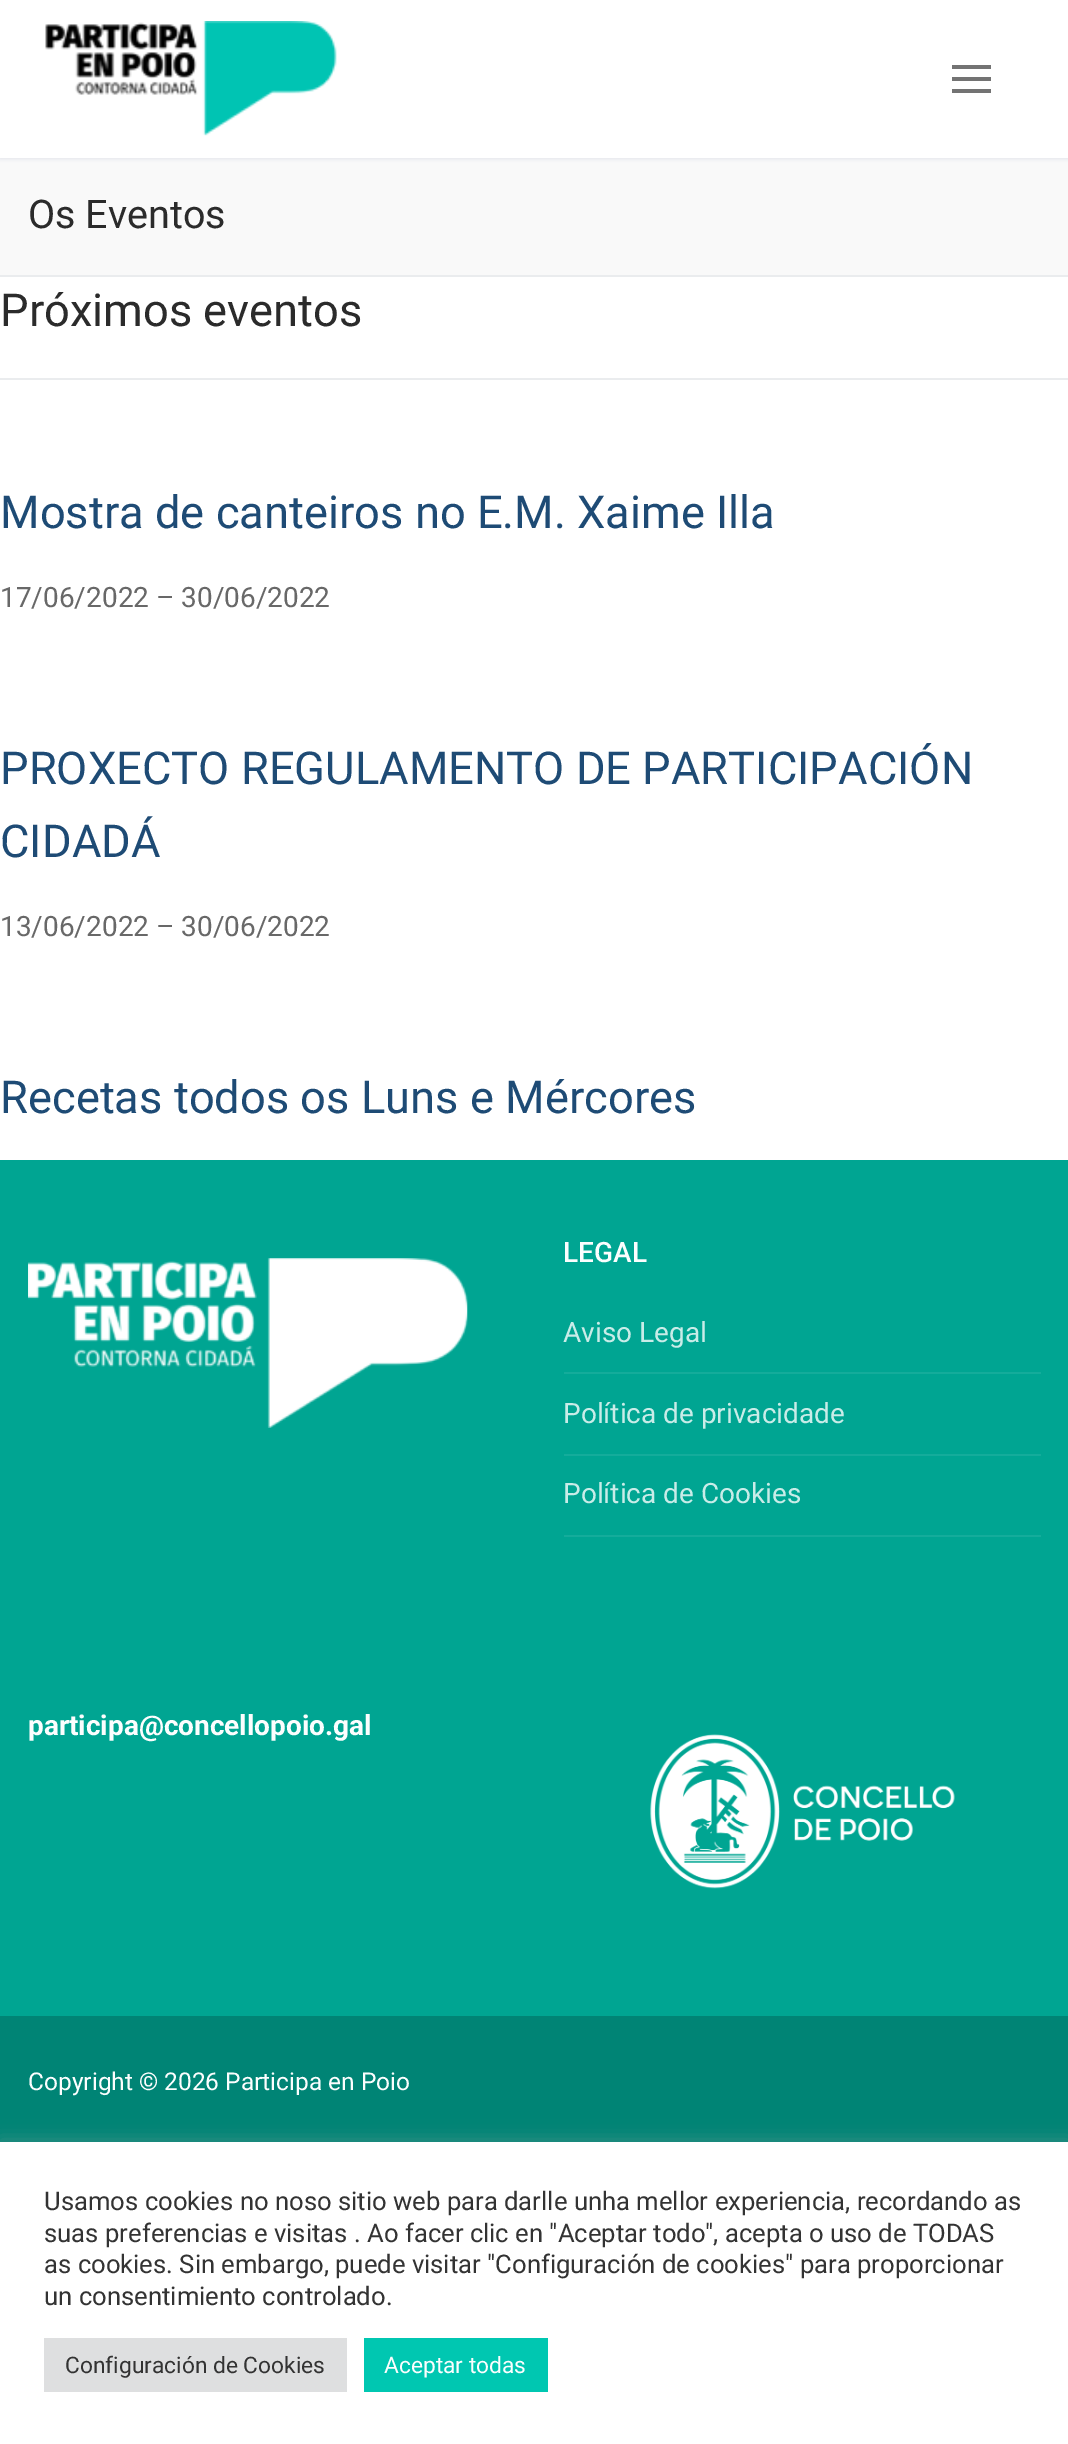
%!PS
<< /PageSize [1068 2444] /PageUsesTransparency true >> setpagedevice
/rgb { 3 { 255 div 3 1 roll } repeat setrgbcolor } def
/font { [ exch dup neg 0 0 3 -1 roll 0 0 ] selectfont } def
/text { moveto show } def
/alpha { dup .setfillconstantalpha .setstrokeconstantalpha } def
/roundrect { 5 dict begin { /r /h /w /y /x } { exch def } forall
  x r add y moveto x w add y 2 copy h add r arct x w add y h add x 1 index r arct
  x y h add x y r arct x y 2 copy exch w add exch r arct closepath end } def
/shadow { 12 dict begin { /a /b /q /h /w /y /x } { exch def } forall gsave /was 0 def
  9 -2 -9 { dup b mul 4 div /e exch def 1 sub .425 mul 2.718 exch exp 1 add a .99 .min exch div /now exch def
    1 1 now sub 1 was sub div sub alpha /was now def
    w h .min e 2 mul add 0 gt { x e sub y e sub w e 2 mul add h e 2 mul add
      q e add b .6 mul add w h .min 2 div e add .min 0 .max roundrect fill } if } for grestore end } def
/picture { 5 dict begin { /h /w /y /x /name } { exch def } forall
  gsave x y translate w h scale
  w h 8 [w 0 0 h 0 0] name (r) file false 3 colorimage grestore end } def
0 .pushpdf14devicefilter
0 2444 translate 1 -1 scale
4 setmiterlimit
255 255 255 rgb
0 0 1068 2444 rectfill
249 249 249 rgb
0 158 1068 117 rectfill
225 229 234 rgb
0 2 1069 157 0 2 1 shadow
255 255 255 rgb
0 0 1068 158 rectfill
(img_01.rgb) 45 21 292 115 picture
115 115 115 rgb
952 77 39 4 rectfill
952 65 39 4 rectfill
952 89 39 4 rectfill
234 236 238 rgb
0 275 1068 2 rectfill
0 378 1068 2 rectfill
0 165 146 rgb
0 1160 1068 856 rectfill
(img_02.rgb) 28 1258 440 170 picture
20 172 155 rgb
564 1372 477 2 rectfill
564 1454 477 2 rectfill
564 1535 477 2 rectfill
(img_03.rgb) 650 1734 305 155 picture
0 132 117 rgb
0 2016 1068 126 rectfill
172 171 171 rgb
0 2140 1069 303 0 9 0.3 shadow
255 255 255 rgb
0 2142 1068 302 rectfill
222 223 224 rgb
44 2338 303 54 rectfill
0 199 177 rgb
364 2338 184 54 rectfill
/Roboto-Regular 39.5 font
43 43 43 rgb
(Os Eventos) 28 228 text
/Roboto-Regular 45.3 font
(Próximos eventos) 0 326 text
30 75 117 rgb
(Mostra de canteiros no E.M. Xaime Illa) 0 528 text
/Roboto-Regular 28 font
104 104 104 rgb
(17/06/2022 – 30/06/2022) 0 607 text
/Roboto-Regular 45.3 font
30 75 117 rgb
(PROXECTO REGULAMENTO DE PARTICIPACIÓN) 0 784 text
(CIDADÁ) 0 857 text
/Roboto-Regular 28 font
104 104 104 rgb
(13/06/2022 – 30/06/2022) 0 936 text
/Roboto-Regular 45.3 font
30 75 117 rgb
(Recetas todos os Luns e Mércores) 0 1113 text
/Roboto-Medium 28 font
252 254 254 rgb
(LEGAL) 563 1262 text
/Roboto-Regular 28 font
201 236 232 rgb
(Aviso Legal) 563 1342 text
(Política de privacidade) 563 1423 text
(Política de Cookies) 563 1503 text
/Roboto-Bold 28 font
252 254 254 rgb
(participa@concellopoio.gal) 28 1735 text
/Roboto-Regular 24.5 font
(Copyright © 2026 Participa en Poio) 28 2090 text
/Roboto-Regular 25.65 font
51 51 51 rgb
(Usamos cookies no noso sitio web para) 44 2210 text
(darlle unha mellor experiencia, recordando as) 504 2210 text
(suas preferencias e visitas . Ao facer clic en "Aceptar todo", acepta o uso de TODAS) 44 2242 text
(as cookies. Sin embargo, puede visitar "Configuración de cookies" para proporcionar) 44 2273 text
(un consentimiento controlado.) 44 2305 text
/Roboto-Regular 22.75 font
(Configuración de Cookies) 65 2373 text
252 254 254 rgb
(Aceptar todas) 384 2373 text
.poppdf14devicefilter showpage
